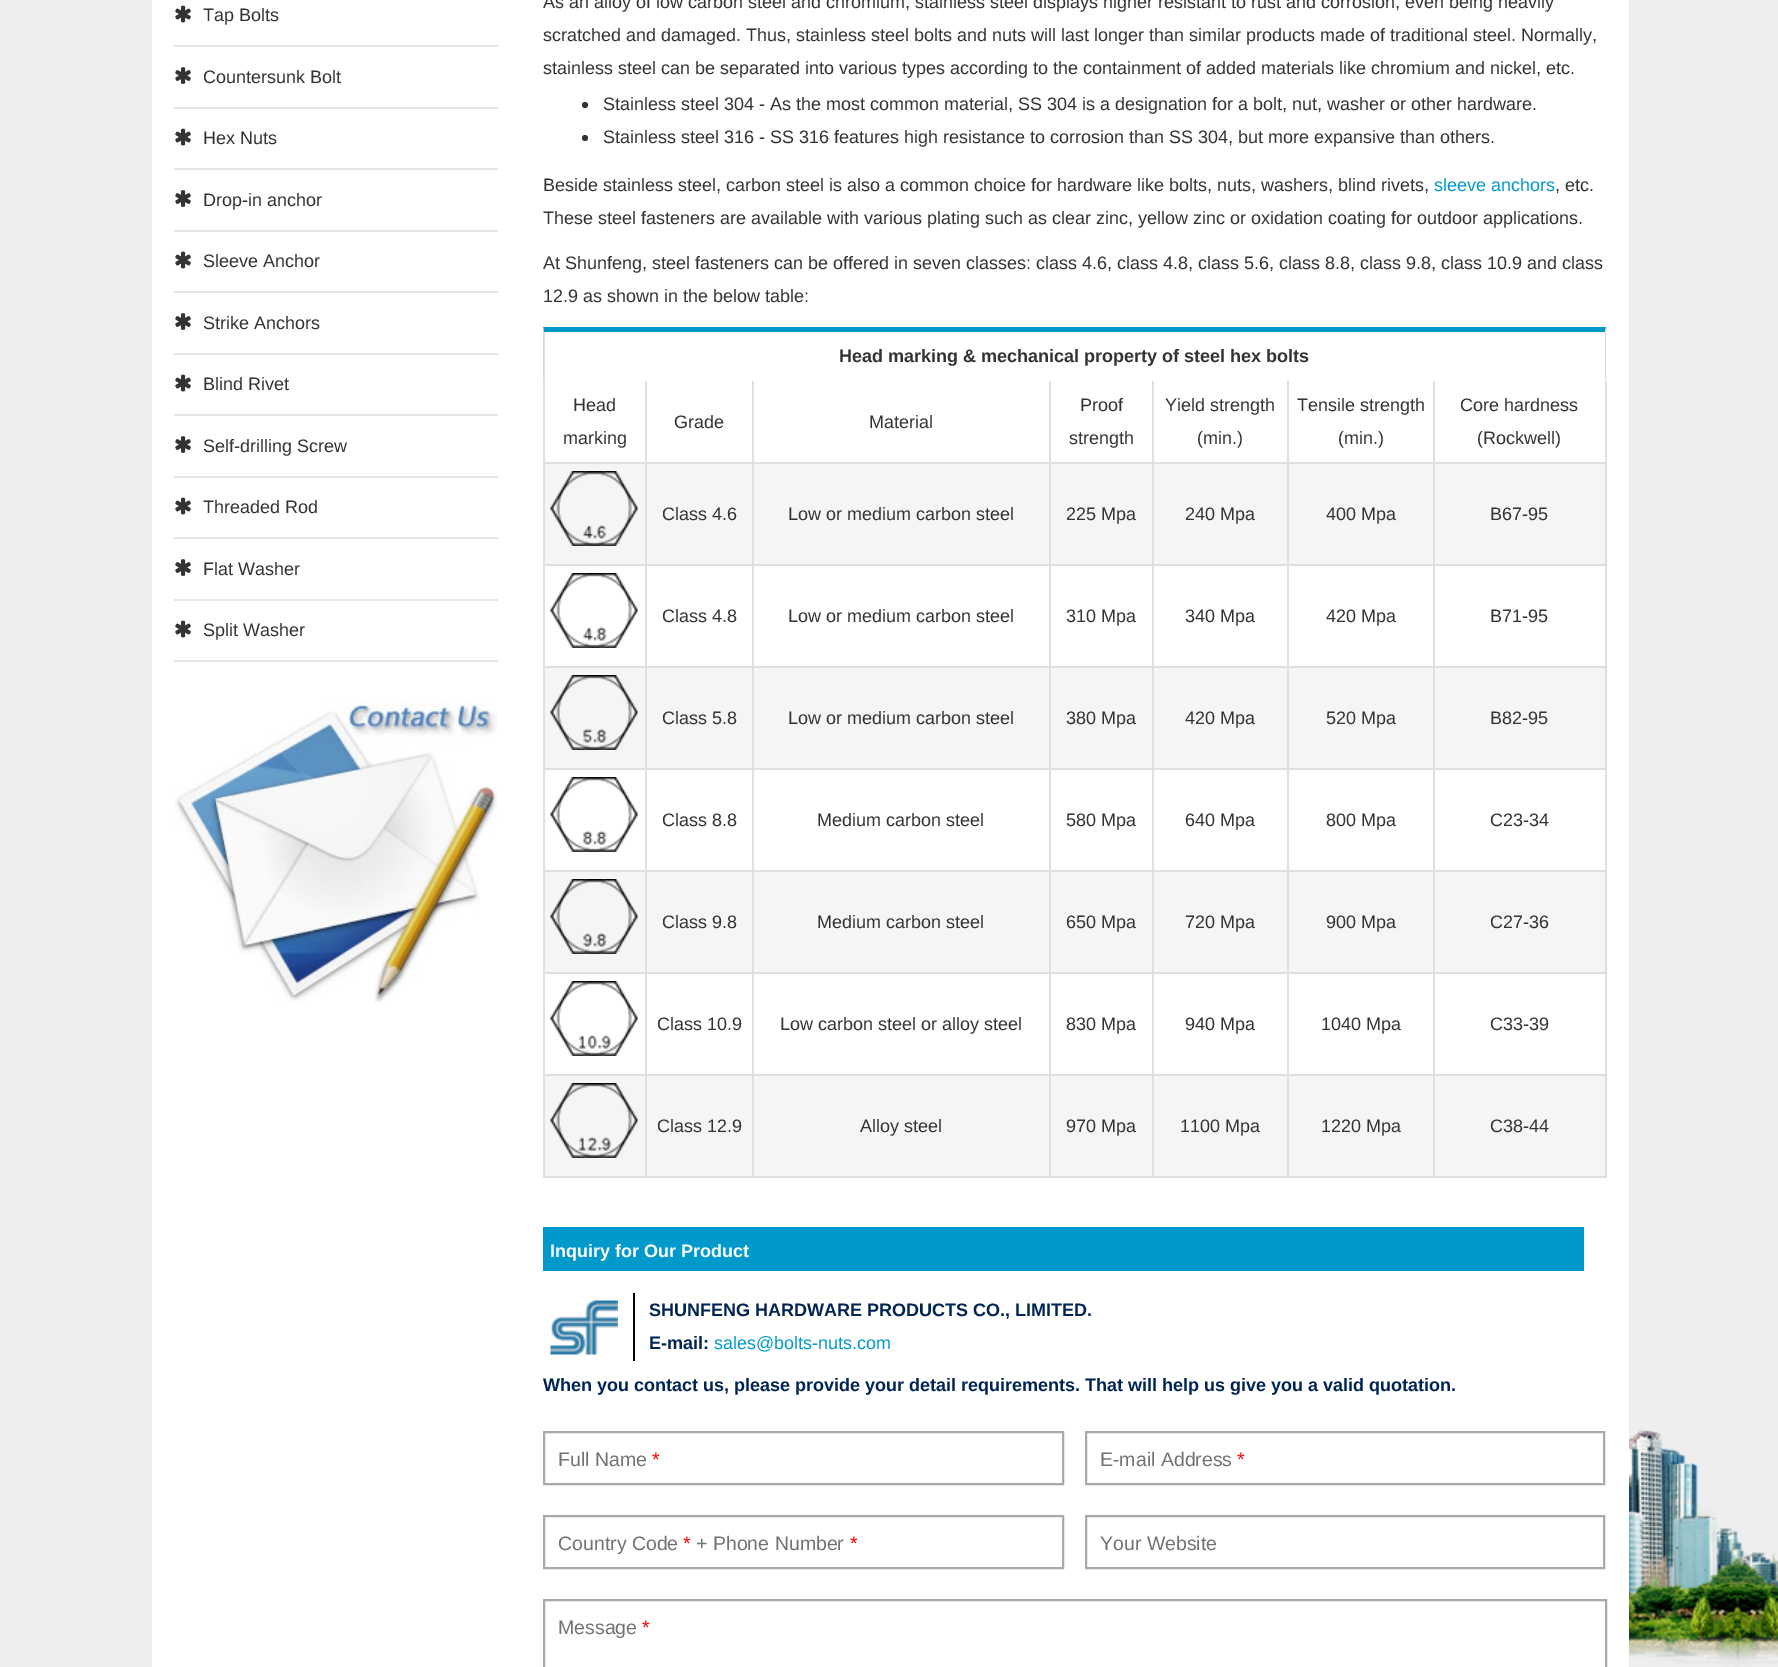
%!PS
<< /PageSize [1778 1667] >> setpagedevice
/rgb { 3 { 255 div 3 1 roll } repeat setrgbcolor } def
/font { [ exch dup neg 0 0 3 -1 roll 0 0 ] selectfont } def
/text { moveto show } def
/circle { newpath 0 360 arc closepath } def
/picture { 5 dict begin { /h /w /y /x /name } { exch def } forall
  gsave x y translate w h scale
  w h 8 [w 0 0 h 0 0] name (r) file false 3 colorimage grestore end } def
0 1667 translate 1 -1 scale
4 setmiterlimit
238 238 238 rgb
0 0 1778 1667 rectfill
(img_01.rgb) 1629 1429 149 238 picture
255 255 255 rgb
152 0 1477 1667 rectfill
229 229 229 rgb
174 45 324 2 rectfill
(img_02.rgb) 175 5 16 18 picture
174 107 324 2 rectfill
(img_03.rgb) 175 67 16 17 picture
174 168 324 2 rectfill
(img_02.rgb) 175 128 16 18 picture
174 230 324 2 rectfill
(img_03.rgb) 175 190 16 17 picture
174 291 324 2 rectfill
(img_02.rgb) 175 251 16 18 picture
174 353 324 2 rectfill
(img_03.rgb) 175 313 16 17 picture
174 414 324 2 rectfill
(img_02.rgb) 175 374 16 18 picture
174 476 324 2 rectfill
(img_03.rgb) 175 436 16 17 picture
174 537 324 2 rectfill
(img_02.rgb) 175 497 16 18 picture
174 599 324 2 rectfill
(img_03.rgb) 175 559 16 17 picture
174 660 324 2 rectfill
(img_02.rgb) 175 620 16 18 picture
(img_04.rgb) 174 702 324 301 picture
51 51 51 rgb
585 105 3 circle fill
585 138 3 circle fill
222 224 224 rgb
1605 327 2 2 rectfill
543 327 2 851 rectfill
0 153 204 rgb
543 327 moveto 1063 0 rlineto -1 5 rlineto -1061 0 rlineto closepath fill
219 219 219 rgb
1606 327 moveto 0 53 rlineto -1 0 rlineto 0 -48 rlineto closepath fill
543 380 moveto 0 -53 rlineto 1 5 rlineto 0 48 rlineto closepath fill
222 224 224 rgb
645 381 2 83 rectfill
545 462 102 2 rectfill
752 381 2 83 rectfill
647 462 106 2 rectfill
1049 381 2 83 rectfill
753 462 297 2 rectfill
1152 381 2 83 rectfill
1050 462 104 2 rectfill
1287 381 2 83 rectfill
1154 462 135 2 rectfill
1433 381 2 83 rectfill
1289 462 145 2 rectfill
1605 381 2 797 rectfill
1434 462 173 2 rectfill
245 245 245 rgb
545 464 1060 100 rectfill
222 224 224 rgb
645 464 2 204 rectfill
545 564 102 2 rectfill
(img_05.rgb) 550 471 88 75 picture
752 464 2 204 rectfill
647 564 106 2 rectfill
1049 464 2 204 rectfill
753 564 297 2 rectfill
1152 464 2 204 rectfill
1050 564 104 2 rectfill
1287 464 2 204 rectfill
1154 564 135 2 rectfill
1433 464 2 204 rectfill
1289 564 318 2 rectfill
545 666 1062 2 rectfill
(img_06.rgb) 550 573 88 75 picture
245 245 245 rgb
545 668 1060 100 rectfill
222 224 224 rgb
645 668 2 204 rectfill
545 768 102 2 rectfill
(img_07.rgb) 550 675 88 75 picture
752 668 2 204 rectfill
647 768 106 2 rectfill
1049 668 2 204 rectfill
753 768 297 2 rectfill
1152 668 2 204 rectfill
1050 768 104 2 rectfill
1287 668 2 204 rectfill
1154 768 135 2 rectfill
1433 668 2 204 rectfill
1289 768 318 2 rectfill
545 870 1062 2 rectfill
(img_08.rgb) 550 777 88 75 picture
245 245 245 rgb
545 872 1060 100 rectfill
222 224 224 rgb
645 872 2 204 rectfill
545 972 102 2 rectfill
(img_09.rgb) 550 879 88 75 picture
752 872 2 204 rectfill
647 972 106 2 rectfill
1049 872 2 204 rectfill
753 972 297 2 rectfill
1152 872 2 204 rectfill
1050 972 104 2 rectfill
1287 872 2 204 rectfill
1154 972 135 2 rectfill
1433 872 2 204 rectfill
1289 972 318 2 rectfill
545 1074 1062 2 rectfill
(img_10.rgb) 550 981 88 75 picture
245 245 245 rgb
545 1076 1060 100 rectfill
222 224 224 rgb
645 1076 2 102 rectfill
545 1176 102 2 rectfill
(img_11.rgb) 550 1083 88 75 picture
752 1076 2 102 rectfill
647 1176 106 2 rectfill
1049 1076 2 102 rectfill
753 1176 297 2 rectfill
1152 1076 2 102 rectfill
1050 1176 104 2 rectfill
1287 1076 2 102 rectfill
1154 1176 135 2 rectfill
1433 1076 2 102 rectfill
1289 1176 318 2 rectfill
0 153 204 rgb
543 1227 1041 44 rectfill
(img_12.rgb) 550 1300 68 55 picture
0 0 0 rgb
633 1293 2 68 rectfill
169 169 169 rgb
2 setlinewidth
544 1432 519 52 rectstroke
1086 1432 518 52 rectstroke
544 1516 519 52 rectstroke
1086 1516 518 52 rectstroke
544 1600 1062 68 rectstroke
/LiberationSans-Regular 18 font
51 51 51 rgb
(Tap Bolts) 203 21 text
(Countersunk Bolt) 203 83 text
(Hex Nuts) 203 144 text
(Drop-in anchor) 203 206 text
(Sleeve Anchor) 203 267 text
(Strike Anchors) 203 329 text
(Blind Rivet) 203 390 text
(Self-drilling Screw) 203 452 text
(Threaded Rod) 203 513 text
(Flat Washer) 203 575 text
(Split Washer) 203 636 text
(As an alloy of low carbon steel and chromium, stainless steel displays higher resistant to rust and corrosion, even being heavily) 543 8 text
(scratched and damaged. Thus, stainless steel bolts and nuts will last longer than similar products made of traditional steel. Normally,) 543 41 text
(stainless steel can be separated into various types according to the containment of added materials like chromium and nickel, etc.) 543 74 text
(Stainless steel 304 - As the most common material, SS 304 is a designation for a bolt, nut, washer or other hardware.) 603 110 text
(Stainless steel 316 - SS 316 features high resistance to corrosion than SS 304, but more expansive than others.) 603 143 text
(Beside stainless steel, carbon steel is also a common choice for hardware like bolts, nuts, washers, blind rivets,) 543 191 text
0 153 204 rgb
(sleeve anchors) 1434 191 text
51 51 51 rgb
(, etc.) 1555 191 text
(These steel fasteners are available with various plating such as clear zinc, yellow zinc or oxidation coating for outdoor applications.) 543 224 text
(At Shunfeng, steel fasteners can be offered in seven classes: class 4.6, class 4.8, class 5.6, class 8.8, class 9.8, class 10.9 and class) 543 269 text
(12.9 as shown in the below table:) 543 302 text
/LiberationSans-Bold 18 font
(Head marking & mechanical property of steel hex bolts) 839 362 text
/LiberationSans-Regular 18 font
(Head) 573 411 text
(marking) 563 444 text
(Grade) 674 428 text
(Material) 869 428 text
(Proof) 1080 411 text
(strength) 1069 444 text
(Yield strength) 1165 411 text
(\(min.\)) 1197 444 text
(Tensile strength) 1297 411 text
(\(min.\)) 1338 444 text
(Core hardness) 1460 411 text
(\(Rockwell\)) 1477 444 text
(Class 4.6) 662 520 text
(Low or medium carbon steel) 788 520 text
(225 Mpa) 1066 520 text
(240 Mpa) 1185 520 text
(400 Mpa) 1326 520 text
(B67-95) 1490 520 text
(Class 4.8) 662 622 text
(Low or medium carbon steel) 788 622 text
(310 Mpa) 1066 622 text
(340 Mpa) 1185 622 text
(420 Mpa) 1326 622 text
(B71-95) 1490 622 text
(Class 5.8) 662 724 text
(Low or medium carbon steel) 788 724 text
(380 Mpa) 1066 724 text
(420 Mpa) 1185 724 text
(520 Mpa) 1326 724 text
(B82-95) 1490 724 text
(Class 8.8) 662 826 text
(Medium carbon steel) 817 826 text
(580 Mpa) 1066 826 text
(640 Mpa) 1185 826 text
(800 Mpa) 1326 826 text
(C23-34) 1490 826 text
(Class 9.8) 662 928 text
(Medium carbon steel) 817 928 text
(650 Mpa) 1066 928 text
(720 Mpa) 1185 928 text
(900 Mpa) 1326 928 text
(C27-36) 1490 928 text
(Class 10.9) 657 1030 text
(Low carbon steel or alloy steel) 780 1030 text
(830 Mpa) 1066 1030 text
(940 Mpa) 1185 1030 text
(1040 Mpa) 1321 1030 text
(C33-39) 1490 1030 text
(Class 12.9) 657 1132 text
(Alloy steel) 860 1132 text
(970 Mpa) 1066 1132 text
(1100 Mpa) 1180 1132 text
(1220 Mpa) 1321 1132 text
(C38-44) 1490 1132 text
/LiberationSans-Bold 18 font
255 255 255 rgb
(Inquiry for Our Product) 550 1257 text
0 37 84 rgb
(SHUNFENG HARDWARE PRODUCTS CO., LIMITED.) 649 1316 text
(E-mail:) 649 1349 text
/LiberationSans-Regular 18 font
0 153 204 rgb
(sales@bolts-nuts.com) 714 1349 text
/LiberationSans-Bold 18 font
0 37 84 rgb
(When you contact us, please provide your detail requirements. That will help us give you a valid quotation.) 543 1391 text
/LiberationSans-Regular 19.5 font
115 115 115 rgb
(Full Name) 558 1466 text
255 0 0 rgb
(*) 652 1466 text
115 115 115 rgb
(E-mail Address) 1100 1466 text
255 0 0 rgb
(*) 1237 1466 text
115 115 115 rgb
(Country Code) 558 1550 text
255 0 0 rgb
(*) 683 1550 text
115 115 115 rgb
(+ Phone Number) 696 1550 text
255 0 0 rgb
(*) 850 1550 text
115 115 115 rgb
(Your Website) 1100 1550 text
(Message) 558 1634 text
255 0 0 rgb
(*) 642 1634 text
showpage
